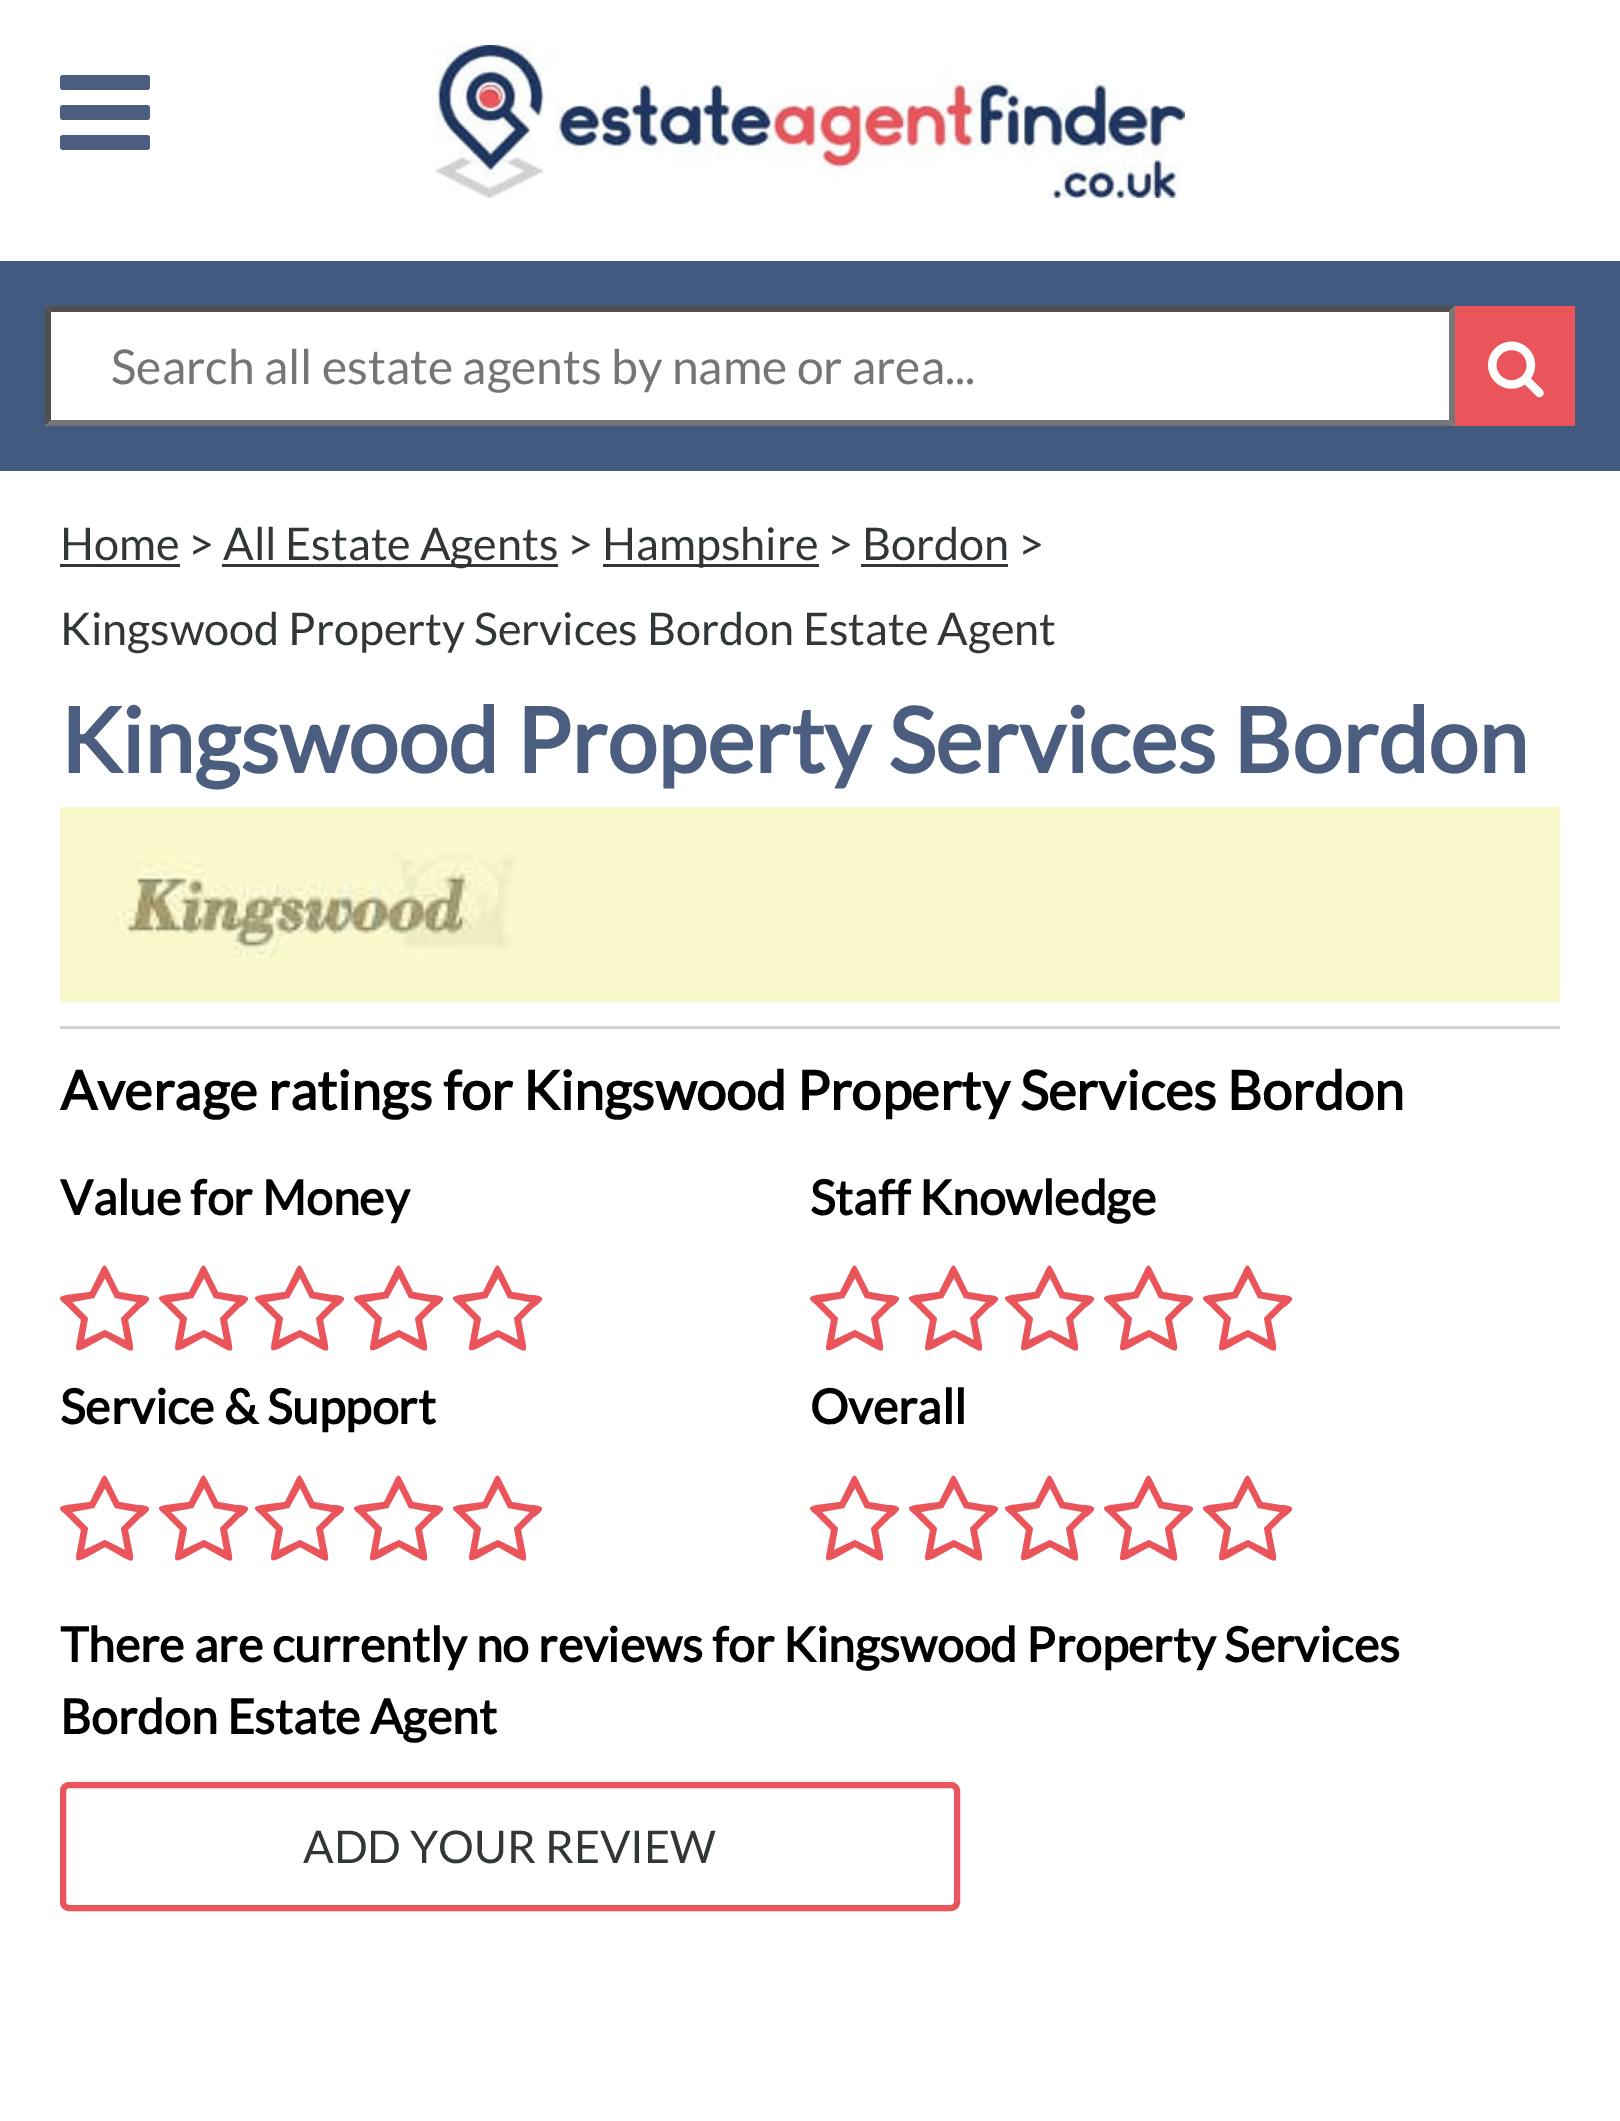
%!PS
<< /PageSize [1620 2121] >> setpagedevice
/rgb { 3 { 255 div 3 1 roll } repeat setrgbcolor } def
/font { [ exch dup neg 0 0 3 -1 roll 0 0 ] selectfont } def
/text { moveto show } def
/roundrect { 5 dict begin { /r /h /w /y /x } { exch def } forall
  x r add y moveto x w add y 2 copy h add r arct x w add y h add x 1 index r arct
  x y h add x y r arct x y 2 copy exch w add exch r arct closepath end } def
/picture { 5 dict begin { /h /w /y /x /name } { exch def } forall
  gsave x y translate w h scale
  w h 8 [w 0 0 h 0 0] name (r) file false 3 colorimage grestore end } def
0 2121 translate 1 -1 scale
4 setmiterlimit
255 255 255 rgb
0 0 1620 2121 rectfill
75 94 128 rgb
60 105 90 15 3 roundrect fill
60 75 90 15 3 roundrect fill
60 135 90 15 3 roundrect fill
(img_01.rgb) 435 45 750 153 picture
66 90 127 rgb
0 261 1620 210 rectfill
255 255 255 rgb
45 306 1410 120 rectfill
79 79 79 rgb
45 306 moveto 1410 0 rlineto -6 6 rlineto -1398 0 rlineto closepath fill
118 118 118 rgb
1455 306 moveto 0 120 rlineto -6 -6 rlineto 0 -108 rlineto closepath fill
1455 426 moveto -1410 0 rlineto 6 -6 rlineto 1398 0 rlineto closepath fill
79 79 79 rgb
45 426 moveto 0 -120 rlineto 6 6 rlineto 0 108 rlineto closepath fill
233 85 90 rgb
1455 306 120 120 rectfill
(img_02.rgb) 1488 341 56 57 picture
49 54 57 rgb
60 564 120 3 rectfill
222 564 336 3 rectfill
603 564 216 3 rectfill
861 564 147 3 rectfill
250 249 204 rgb
60 807 1500 195 rectfill
(img_03.rgb) 113 851 404 106 picture
208 210 211 rgb
60 1026 1500 3 rectfill
233 85 90 rgb
121 1318 moveto 16 -16 rlineto -22 -4 rlineto -10 -20 rlineto -11 20 rlineto -22 4 rlineto 16 16 rlineto -4 22 rlineto 21 -10 rlineto 20 10 rlineto closepath 149 1299 moveto 0 2 -7 8 -8 8 rcurveto -13 13 rlineto 7 39 12 36 -23 17 rcurveto -20 11 rlineto -9 4 -10 3 -8 -6 rcurveto 4 -22 rlineto -16 -16 rlineto -7 -6 -7 -7 2 -9 rcurveto 23 -3 rlineto 10 -20 rlineto 4 -9 5 -8 9 0 rcurveto 10 20 rlineto 18 3 rlineto 1 0 12 0 12 4 rcurveto closepath fill
220 1318 moveto 16 -16 rlineto -22 -4 rlineto -10 -20 rlineto -11 20 rlineto -22 4 rlineto 16 16 rlineto -4 22 rlineto 21 -10 rlineto 20 10 rlineto closepath 248 1299 moveto 0 2 -7 8 -8 8 rcurveto -13 13 rlineto 7 39 12 36 -23 17 rcurveto -20 11 rlineto -9 4 -10 3 -8 -6 rcurveto 4 -22 rlineto -16 -16 rlineto -7 -6 -7 -7 2 -9 rcurveto 23 -3 rlineto 10 -20 rlineto 4 -9 5 -8 9 0 rcurveto 10 20 rlineto 18 3 rlineto 1 0 12 0 12 4 rcurveto closepath fill
316 1318 moveto 16 -16 rlineto -22 -4 rlineto -10 -20 rlineto -11 20 rlineto -22 4 rlineto 16 16 rlineto -4 22 rlineto 21 -10 rlineto 20 10 rlineto closepath 344 1299 moveto 0 2 -7 8 -8 8 rcurveto -13 13 rlineto 7 39 12 36 -23 17 rcurveto -20 11 rlineto -9 4 -10 3 -8 -6 rcurveto 4 -22 rlineto -16 -16 rlineto -7 -6 -7 -7 2 -9 rcurveto 23 -3 rlineto 10 -20 rlineto 4 -9 5 -8 9 0 rcurveto 10 20 rlineto 18 3 rlineto 1 0 12 0 12 4 rcurveto closepath fill
415 1318 moveto 16 -16 rlineto -22 -4 rlineto -10 -20 rlineto -11 20 rlineto -22 4 rlineto 16 16 rlineto -4 22 rlineto 21 -10 rlineto 20 10 rlineto closepath 443 1299 moveto 0 2 -7 8 -8 8 rcurveto -13 13 rlineto 7 39 12 36 -23 17 rcurveto -20 11 rlineto -9 4 -10 3 -8 -6 rcurveto 4 -22 rlineto -16 -16 rlineto -7 -6 -7 -7 2 -9 rcurveto 23 -3 rlineto 10 -20 rlineto 4 -9 5 -8 9 0 rcurveto 10 20 rlineto 18 3 rlineto 1 0 12 0 12 4 rcurveto closepath fill
514 1318 moveto 16 -16 rlineto -22 -4 rlineto -10 -20 rlineto -11 20 rlineto -22 4 rlineto 16 16 rlineto -4 22 rlineto 21 -10 rlineto 20 10 rlineto closepath 542 1299 moveto 0 2 -7 8 -8 8 rcurveto -13 13 rlineto 7 39 12 36 -23 17 rcurveto -20 11 rlineto -9 4 -10 3 -8 -6 rcurveto 4 -22 rlineto -16 -16 rlineto -7 -6 -7 -7 2 -9 rcurveto 23 -3 rlineto 10 -20 rlineto 4 -9 5 -8 9 0 rcurveto 10 20 rlineto 18 3 rlineto 1 0 12 0 12 4 rcurveto closepath fill
121 1528 moveto 16 -16 rlineto -22 -4 rlineto -10 -20 rlineto -11 20 rlineto -22 4 rlineto 16 16 rlineto -4 22 rlineto 21 -10 rlineto 20 10 rlineto closepath 149 1509 moveto 0 2 -7 8 -8 8 rcurveto -13 13 rlineto 7 39 12 36 -23 17 rcurveto -20 11 rlineto -9 4 -10 3 -8 -6 rcurveto 4 -22 rlineto -16 -16 rlineto -7 -6 -7 -7 2 -9 rcurveto 23 -3 rlineto 10 -20 rlineto 4 -9 5 -8 9 0 rcurveto 10 20 rlineto 18 3 rlineto 1 0 12 0 12 4 rcurveto closepath fill
220 1528 moveto 16 -16 rlineto -22 -4 rlineto -10 -20 rlineto -11 20 rlineto -22 4 rlineto 16 16 rlineto -4 22 rlineto 21 -10 rlineto 20 10 rlineto closepath 248 1509 moveto 0 2 -7 8 -8 8 rcurveto -13 13 rlineto 7 39 12 36 -23 17 rcurveto -20 11 rlineto -9 4 -10 3 -8 -6 rcurveto 4 -22 rlineto -16 -16 rlineto -7 -6 -7 -7 2 -9 rcurveto 23 -3 rlineto 10 -20 rlineto 4 -9 5 -8 9 0 rcurveto 10 20 rlineto 18 3 rlineto 1 0 12 0 12 4 rcurveto closepath fill
316 1528 moveto 16 -16 rlineto -22 -4 rlineto -10 -20 rlineto -11 20 rlineto -22 4 rlineto 16 16 rlineto -4 22 rlineto 21 -10 rlineto 20 10 rlineto closepath 344 1509 moveto 0 2 -7 8 -8 8 rcurveto -13 13 rlineto 7 39 12 36 -23 17 rcurveto -20 11 rlineto -9 4 -10 3 -8 -6 rcurveto 4 -22 rlineto -16 -16 rlineto -7 -6 -7 -7 2 -9 rcurveto 23 -3 rlineto 10 -20 rlineto 4 -9 5 -8 9 0 rcurveto 10 20 rlineto 18 3 rlineto 1 0 12 0 12 4 rcurveto closepath fill
415 1528 moveto 16 -16 rlineto -22 -4 rlineto -10 -20 rlineto -11 20 rlineto -22 4 rlineto 16 16 rlineto -4 22 rlineto 21 -10 rlineto 20 10 rlineto closepath 443 1509 moveto 0 2 -7 8 -8 8 rcurveto -13 13 rlineto 7 39 12 36 -23 17 rcurveto -20 11 rlineto -9 4 -10 3 -8 -6 rcurveto 4 -22 rlineto -16 -16 rlineto -7 -6 -7 -7 2 -9 rcurveto 23 -3 rlineto 10 -20 rlineto 4 -9 5 -8 9 0 rcurveto 10 20 rlineto 18 3 rlineto 1 0 12 0 12 4 rcurveto closepath fill
514 1528 moveto 16 -16 rlineto -22 -4 rlineto -10 -20 rlineto -11 20 rlineto -22 4 rlineto 16 16 rlineto -4 22 rlineto 21 -10 rlineto 20 10 rlineto closepath 542 1509 moveto 0 2 -7 8 -8 8 rcurveto -13 13 rlineto 7 39 12 36 -23 17 rcurveto -20 11 rlineto -9 4 -10 3 -8 -6 rcurveto 4 -22 rlineto -16 -16 rlineto -7 -6 -7 -7 2 -9 rcurveto 23 -3 rlineto 10 -20 rlineto 4 -9 5 -8 9 0 rcurveto 10 20 rlineto 18 3 rlineto 1 0 12 0 12 4 rcurveto closepath fill
871 1318 moveto 16 -16 rlineto -22 -4 rlineto -10 -20 rlineto -11 20 rlineto -22 4 rlineto 16 16 rlineto -4 22 rlineto 21 -10 rlineto 20 10 rlineto closepath 899 1299 moveto 0 2 -7 8 -8 8 rcurveto -13 13 rlineto 7 39 12 36 -23 17 rcurveto -20 11 rlineto -9 4 -10 3 -8 -6 rcurveto 4 -22 rlineto -16 -16 rlineto -7 -6 -7 -7 2 -9 rcurveto 23 -3 rlineto 10 -20 rlineto 4 -9 5 -8 9 0 rcurveto 10 20 rlineto 18 3 rlineto 1 0 12 0 12 4 rcurveto closepath fill
970 1318 moveto 16 -16 rlineto -22 -4 rlineto -10 -20 rlineto -11 20 rlineto -22 4 rlineto 16 16 rlineto -4 22 rlineto 21 -10 rlineto 20 10 rlineto closepath 998 1299 moveto 0 2 -7 8 -8 8 rcurveto -13 13 rlineto 7 39 12 36 -23 17 rcurveto -20 11 rlineto -9 4 -10 3 -8 -6 rcurveto 4 -22 rlineto -16 -16 rlineto -7 -6 -7 -7 2 -9 rcurveto 23 -3 rlineto 10 -20 rlineto 4 -9 5 -8 9 0 rcurveto 10 20 rlineto 18 3 rlineto 1 0 12 0 12 4 rcurveto closepath fill
1066 1318 moveto 16 -16 rlineto -22 -4 rlineto -10 -20 rlineto -11 20 rlineto -22 4 rlineto 16 16 rlineto -4 22 rlineto 21 -10 rlineto 20 10 rlineto closepath 1094 1299 moveto 0 2 -7 8 -8 8 rcurveto -13 13 rlineto 7 39 12 36 -23 17 rcurveto -20 11 rlineto -9 4 -10 3 -8 -6 rcurveto 4 -22 rlineto -16 -16 rlineto -7 -6 -7 -7 2 -9 rcurveto 23 -3 rlineto 10 -20 rlineto 4 -9 5 -8 9 0 rcurveto 10 20 rlineto 18 3 rlineto 1 0 12 0 12 4 rcurveto closepath fill
1165 1318 moveto 16 -16 rlineto -22 -4 rlineto -10 -20 rlineto -11 20 rlineto -22 4 rlineto 16 16 rlineto -4 22 rlineto 21 -10 rlineto 20 10 rlineto closepath 1193 1299 moveto 0 2 -7 8 -8 8 rcurveto -13 13 rlineto 7 39 12 36 -23 17 rcurveto -20 11 rlineto -9 4 -10 3 -8 -6 rcurveto 4 -22 rlineto -16 -16 rlineto -7 -6 -7 -7 2 -9 rcurveto 23 -3 rlineto 10 -20 rlineto 4 -9 5 -8 9 0 rcurveto 10 20 rlineto 18 3 rlineto 1 0 12 0 12 4 rcurveto closepath fill
1264 1318 moveto 16 -16 rlineto -22 -4 rlineto -10 -20 rlineto -11 20 rlineto -22 4 rlineto 16 16 rlineto -4 22 rlineto 21 -10 rlineto 20 10 rlineto closepath 1292 1299 moveto 0 2 -7 8 -8 8 rcurveto -13 13 rlineto 7 39 12 36 -23 17 rcurveto -20 11 rlineto -9 4 -10 3 -8 -6 rcurveto 4 -22 rlineto -16 -16 rlineto -7 -6 -7 -7 2 -9 rcurveto 23 -3 rlineto 10 -20 rlineto 4 -9 5 -8 9 0 rcurveto 10 20 rlineto 18 3 rlineto 1 0 12 0 12 4 rcurveto closepath fill
871 1528 moveto 16 -16 rlineto -22 -4 rlineto -10 -20 rlineto -11 20 rlineto -22 4 rlineto 16 16 rlineto -4 22 rlineto 21 -10 rlineto 20 10 rlineto closepath 899 1509 moveto 0 2 -7 8 -8 8 rcurveto -13 13 rlineto 7 39 12 36 -23 17 rcurveto -20 11 rlineto -9 4 -10 3 -8 -6 rcurveto 4 -22 rlineto -16 -16 rlineto -7 -6 -7 -7 2 -9 rcurveto 23 -3 rlineto 10 -20 rlineto 4 -9 5 -8 9 0 rcurveto 10 20 rlineto 18 3 rlineto 1 0 12 0 12 4 rcurveto closepath fill
970 1528 moveto 16 -16 rlineto -22 -4 rlineto -10 -20 rlineto -11 20 rlineto -22 4 rlineto 16 16 rlineto -4 22 rlineto 21 -10 rlineto 20 10 rlineto closepath 998 1509 moveto 0 2 -7 8 -8 8 rcurveto -13 13 rlineto 7 39 12 36 -23 17 rcurveto -20 11 rlineto -9 4 -10 3 -8 -6 rcurveto 4 -22 rlineto -16 -16 rlineto -7 -6 -7 -7 2 -9 rcurveto 23 -3 rlineto 10 -20 rlineto 4 -9 5 -8 9 0 rcurveto 10 20 rlineto 18 3 rlineto 1 0 12 0 12 4 rcurveto closepath fill
1066 1528 moveto 16 -16 rlineto -22 -4 rlineto -10 -20 rlineto -11 20 rlineto -22 4 rlineto 16 16 rlineto -4 22 rlineto 21 -10 rlineto 20 10 rlineto closepath 1094 1509 moveto 0 2 -7 8 -8 8 rcurveto -13 13 rlineto 7 39 12 36 -23 17 rcurveto -20 11 rlineto -9 4 -10 3 -8 -6 rcurveto 4 -22 rlineto -16 -16 rlineto -7 -6 -7 -7 2 -9 rcurveto 23 -3 rlineto 10 -20 rlineto 4 -9 5 -8 9 0 rcurveto 10 20 rlineto 18 3 rlineto 1 0 12 0 12 4 rcurveto closepath fill
1165 1528 moveto 16 -16 rlineto -22 -4 rlineto -10 -20 rlineto -11 20 rlineto -22 4 rlineto 16 16 rlineto -4 22 rlineto 21 -10 rlineto 20 10 rlineto closepath 1193 1509 moveto 0 2 -7 8 -8 8 rcurveto -13 13 rlineto 7 39 12 36 -23 17 rcurveto -20 11 rlineto -9 4 -10 3 -8 -6 rcurveto 4 -22 rlineto -16 -16 rlineto -7 -6 -7 -7 2 -9 rcurveto 23 -3 rlineto 10 -20 rlineto 4 -9 5 -8 9 0 rcurveto 10 20 rlineto 18 3 rlineto 1 0 12 0 12 4 rcurveto closepath fill
1264 1528 moveto 16 -16 rlineto -22 -4 rlineto -10 -20 rlineto -11 20 rlineto -22 4 rlineto 16 16 rlineto -4 22 rlineto 21 -10 rlineto 20 10 rlineto closepath 1292 1509 moveto 0 2 -7 8 -8 8 rcurveto -13 13 rlineto 7 39 12 36 -23 17 rcurveto -20 11 rlineto -9 4 -10 3 -8 -6 rcurveto 4 -22 rlineto -16 -16 rlineto -7 -6 -7 -7 2 -9 rcurveto 23 -3 rlineto 10 -20 rlineto 4 -9 5 -8 9 0 rcurveto 10 20 rlineto 18 3 rlineto 1 0 12 0 12 4 rcurveto closepath fill
6 setlinewidth
63 1785 894 123 6 roundrect stroke
/Lato-Regular 48 font
117 117 117 rgb
(Search all estate agents by name or area...) 111 384 text
/Lato-Regular 45 font
49 54 57 rgb
(Home >) 60 560 text
(All Estate Agents >) 223 560 text
(Hampshire > Bordon >) 602 560 text
(Kingswood Property Services Bordon Estate Agent) 60 645 text
/Lato-Bold 90 font
75 94 128 rgb
(Kingswood Property Services Bordon) 60 773 text
/Lato-Bold 54 font
0 0 0 rgb
(Average ratings for Kingswood Property Services Bordon) 60 1110 text
/Lato-Bold 48 font
(Value for Money) 60 1215 text
(Service & Support) 60 1424 text
(Staff Knowledge) 810 1215 text
(Overall) 810 1424 text
(There are currently no reviews for Kingswood Property Services) 60 1662 text
(Bordon Estate Agent) 60 1734 text
/Lato-Regular 45 font
49 54 57 rgb
(ADD YOUR REVIEW) 303 1863 text
showpage
